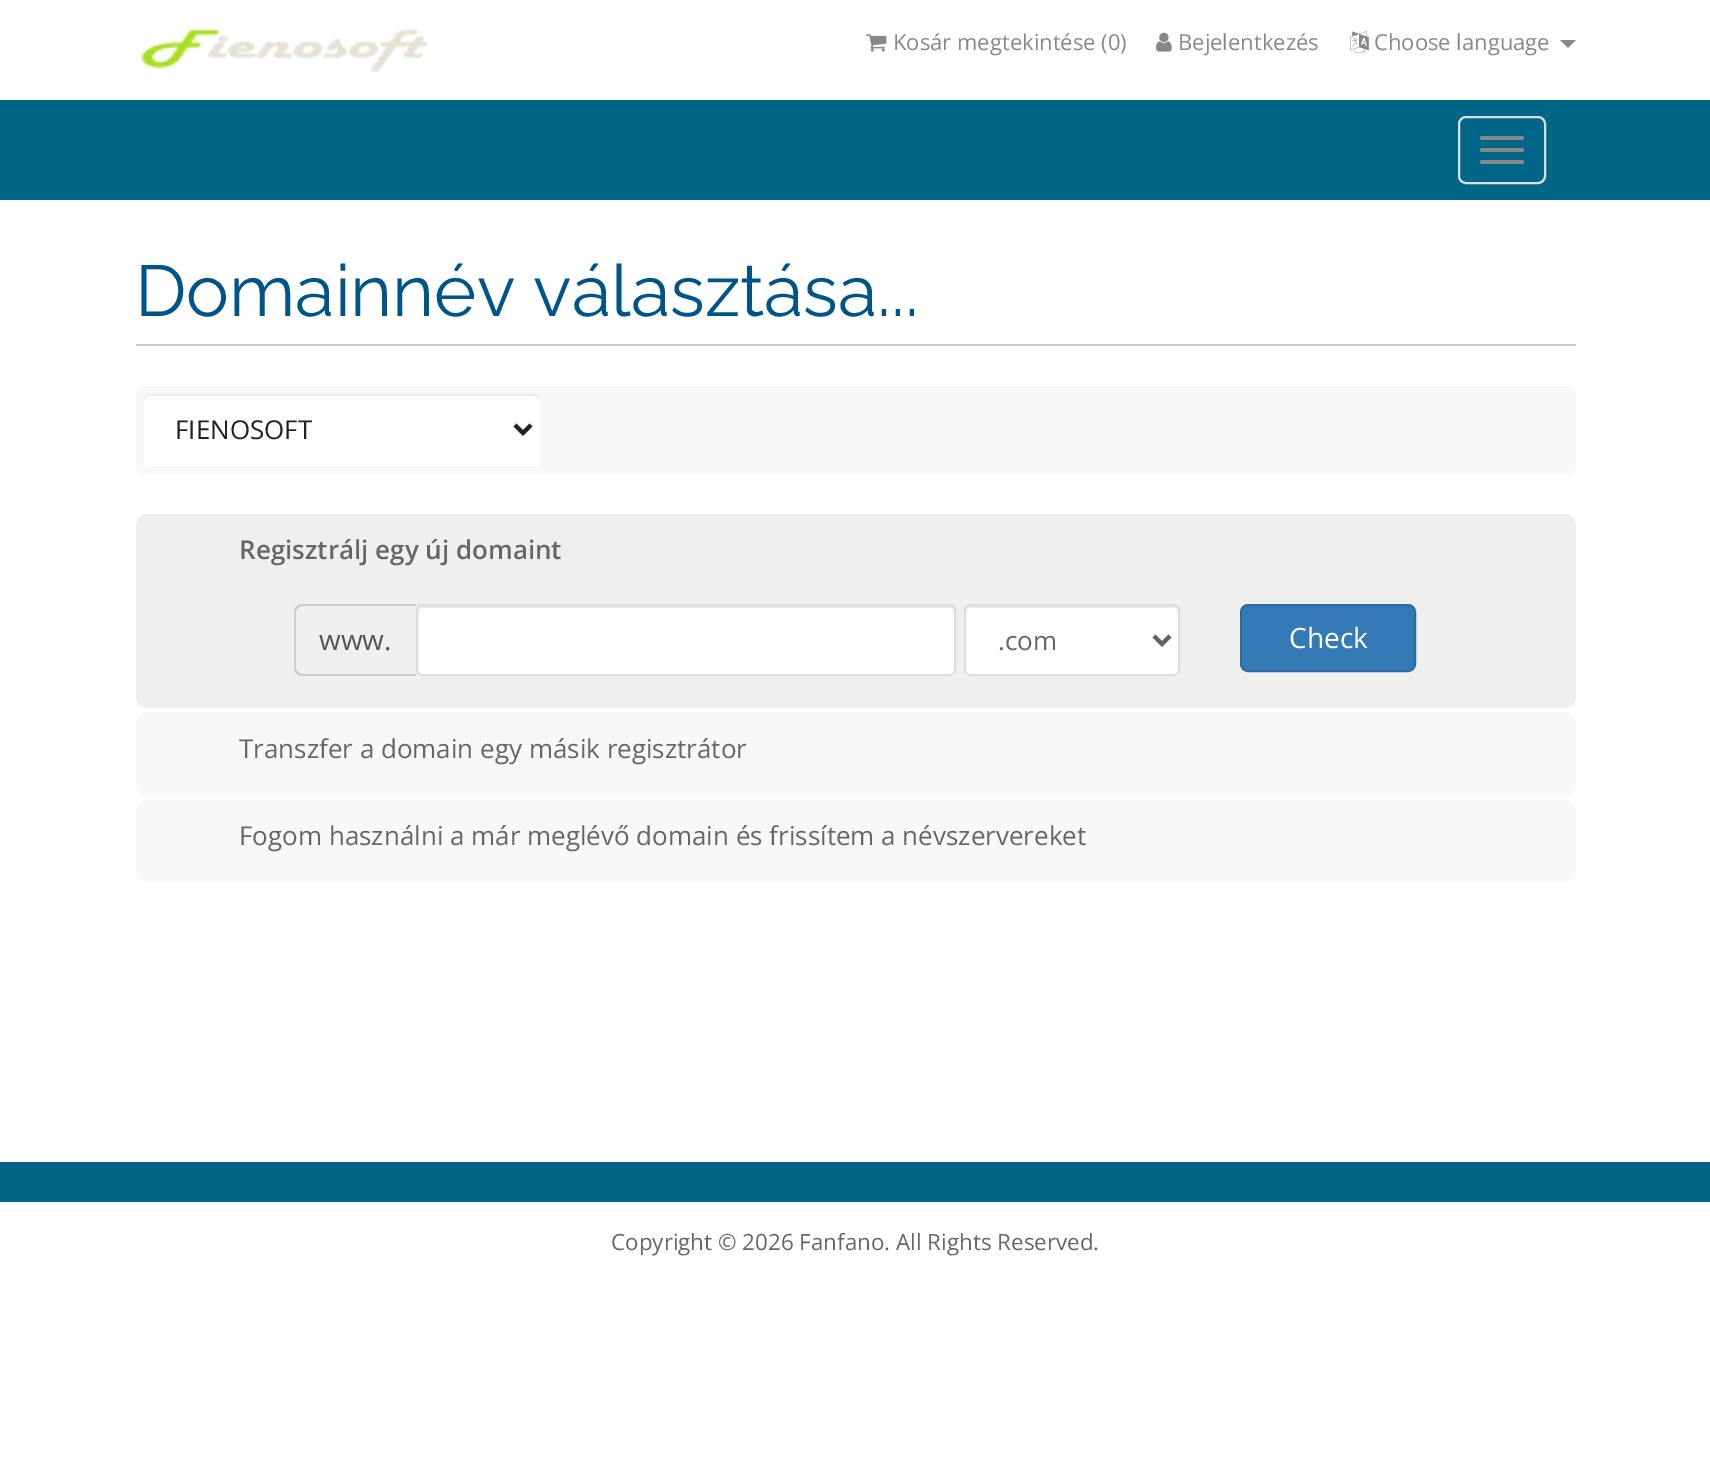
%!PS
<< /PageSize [1710 1468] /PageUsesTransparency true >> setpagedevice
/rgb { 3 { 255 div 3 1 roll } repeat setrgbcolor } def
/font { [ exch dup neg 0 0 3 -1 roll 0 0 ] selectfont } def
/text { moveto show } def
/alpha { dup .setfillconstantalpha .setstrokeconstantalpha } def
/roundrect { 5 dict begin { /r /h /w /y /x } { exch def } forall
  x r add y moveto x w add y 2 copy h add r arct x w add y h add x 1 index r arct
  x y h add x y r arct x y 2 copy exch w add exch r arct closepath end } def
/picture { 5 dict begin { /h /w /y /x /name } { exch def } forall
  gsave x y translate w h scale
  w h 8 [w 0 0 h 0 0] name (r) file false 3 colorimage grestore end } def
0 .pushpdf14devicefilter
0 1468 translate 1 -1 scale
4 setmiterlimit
255 255 255 rgb
0 0 1710 1468 rectfill
(img_01.rgb) 141 29 288 44 picture
(img_02.rgb) 866 34 21 18 picture
(img_03.rgb) 1156 32 16 20 picture
(img_04.rgb) 1350 31 19 23 picture
136 136 136 rgb
1560 40 moveto 16 0 rlineto -8 8 rlineto closepath fill
0 102 135 rgb
0 100 1710 100 rectfill
221 221 221 rgb
2 setlinewidth
1459 117 86 66 7 roundrect stroke
136 136 136 rgb
1480 136 44 4 2 roundrect fill
1480 148 44 4 2 roundrect fill
1480 160 44 4 2 roundrect fill
204 204 204 rgb
136 344 1440 2 rectfill
248 248 248 rgb
136 386 1440 88 8 roundrect fill
255 255 255 rgb
144 394 396 72 6 roundrect fill
0.07 alpha
0 0 0 rgb
150 396 moveto 384 0 rlineto 3 0 6 3 6 6 rcurveto 0 -4 -1 -8 -6 -8 rcurveto -384 0 rlineto -5 0 -6 4 -6 8 rcurveto 0 -3 3 -6 6 -6 rcurveto closepath fill
1 alpha
34 34 34 rgb
4 setlinewidth
515 425 moveto 8 8 rlineto 8 -8 rlineto stroke
239 239 239 rgb
136 514 1440 194 12 roundrect fill
204 204 204 rgb
302 604 moveto 114 0 rlineto 0 72 rlineto -114 0 rlineto -4 0 -8 -4 -8 -8 rcurveto 0 -56 rlineto 0 -4 4 -8 8 -8 rcurveto closepath 302 606 moveto 114 0 rlineto 0 68 rlineto -114 0 rlineto -3 0 -6 -3 -6 -6 rcurveto 0 -56 rlineto 0 -3 3 -6 6 -6 rcurveto closepath eofill
255 255 255 rgb
416 604 540 72 6 roundrect fill
236 236 236 rgb
422 608 moveto 528 0 rlineto 2 0 4 2 4 4 rcurveto 0 -2 rlineto 0 -2 -2 -4 -4 -4 rcurveto -528 0 rlineto -2 0 -4 2 -4 4 rcurveto 0 2 rlineto 0 -2 2 -4 4 -4 rcurveto closepath fill
221 221 221 rgb
2 setlinewidth
417 605 538 70 5 roundrect stroke
255 255 255 rgb
964 604 216 72 6 roundrect fill
236 236 236 rgb
970 608 moveto 204 0 rlineto 2 0 4 2 4 4 rcurveto 0 -3 0 -5 -3 -6 rcurveto -206 0 rlineto -3 1 -3 3 -3 6 rcurveto 0 -2 2 -4 4 -4 rcurveto closepath fill
221 221 221 rgb
965 605 214 70 5 roundrect stroke
98 98 98 rgb
4 setlinewidth
1154 636 moveto 8 8 rlineto 8 -8 rlineto stroke
51 122 183 rgb
1241 605 174 66 7 roundrect gsave fill grestore
46 109 164 rgb
2 setlinewidth
stroke
248 248 248 rgb
136 712 1440 84 12 roundrect fill
136 800 1440 82 12 roundrect fill
0 102 135 rgb
0 1162 1710 40 rectfill
/OpenSans-Regular 22 font
136 136 136 rgb
(Kosár megtekintése \(0\)) 893 50 text
(Bejelentkezés) 1178 50 text
(Choose language) 1374 50 text
/Raleway-Regular 72 font
0 85 136 rgb
(Domainnév választása...) 135 316 text
/OpenSans-Regular 26 font
34 34 34 rgb
(FIENOSOFT) 175 439 text
/OpenSans-SemiBold 26 font
102 102 102 rgb
(Regisztrálj egy új domaint) 239 559 text
/OpenSans-Regular 28 font
85 85 85 rgb
(www.) 319 650 text
/OpenSans-Regular 26 font
102 102 102 rgb
(.com) 998 650 text
/OpenSans-Regular 28 font
255 255 255 rgb
(Check) 1289 648 text
/OpenSans-Regular 26 font
102 102 102 rgb
(Transzfer a domain egy másik regisztrátor) 239 758 text
(Fogom használni a már meglévő domain és frissítem a névszervereket) 239 845 text
/OpenSans-Regular 22.4 font
(Copyright © 2026 Fanfano. All Rights Reserved.) 611 1250 text
.poppdf14devicefilter showpage
